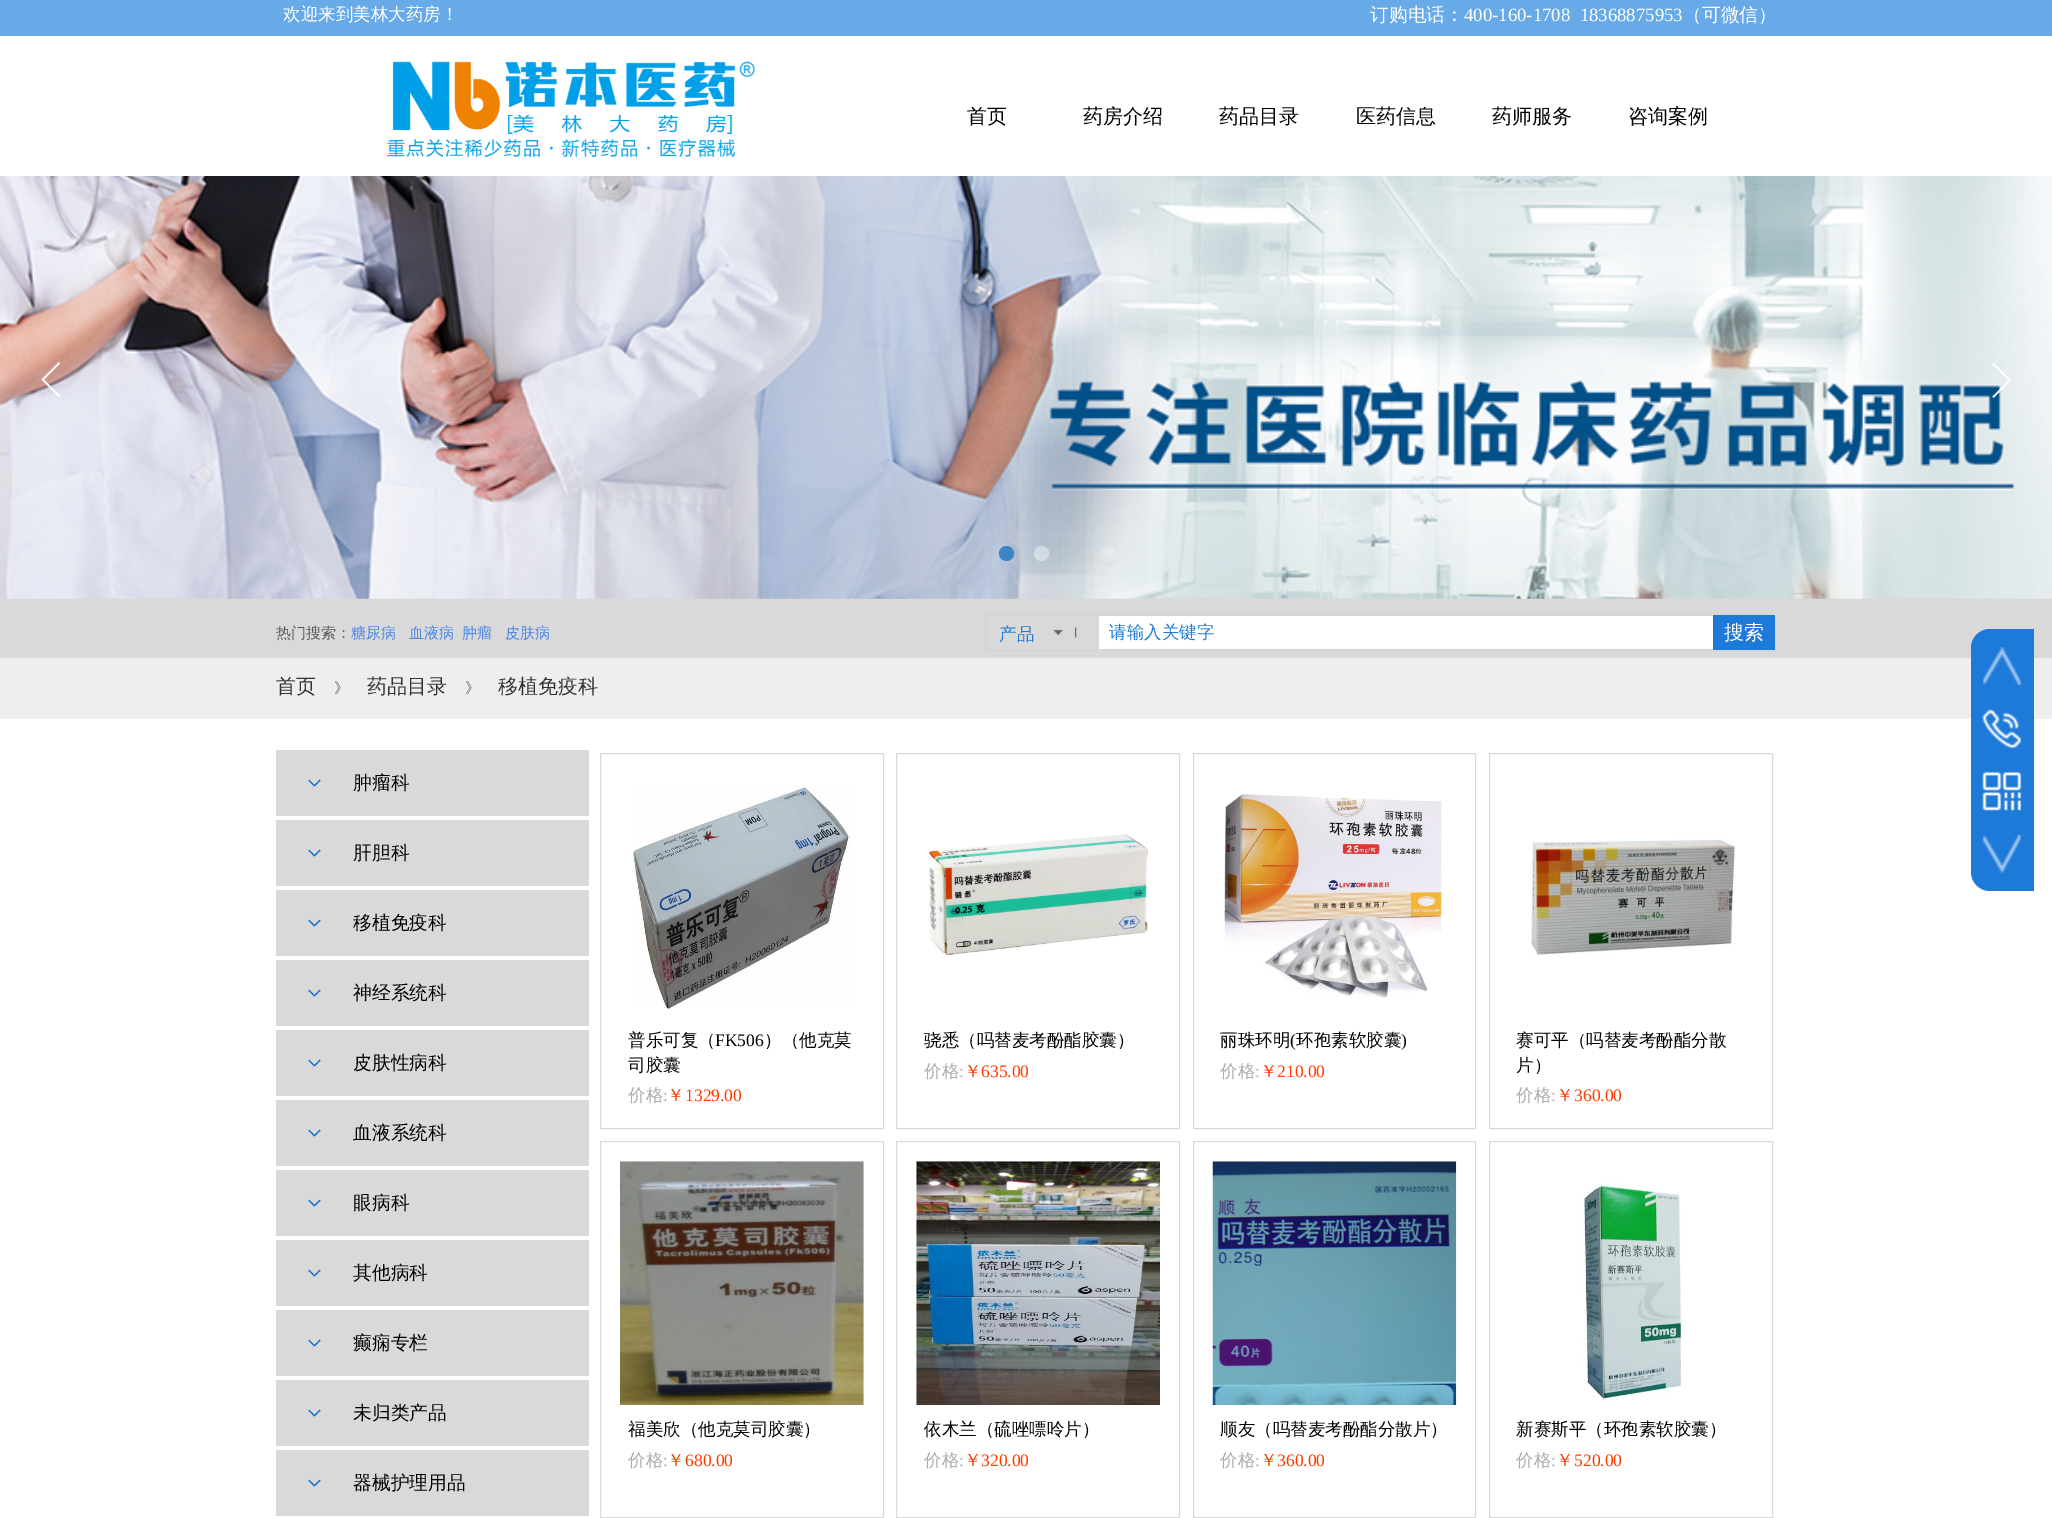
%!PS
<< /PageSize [2052 1518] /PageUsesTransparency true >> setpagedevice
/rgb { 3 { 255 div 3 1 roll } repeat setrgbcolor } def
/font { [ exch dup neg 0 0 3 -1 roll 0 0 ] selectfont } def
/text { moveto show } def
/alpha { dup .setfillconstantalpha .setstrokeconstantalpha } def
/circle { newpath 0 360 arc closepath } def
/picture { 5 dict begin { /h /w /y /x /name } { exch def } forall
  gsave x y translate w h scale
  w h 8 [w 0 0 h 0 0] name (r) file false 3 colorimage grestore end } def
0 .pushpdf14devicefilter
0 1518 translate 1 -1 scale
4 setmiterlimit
255 255 255 rgb
0 0 2052 1518 rectfill
103 170 231 rgb
0 0 2052 36 rectfill
(img_01.rgb) 387 61 369 97 picture
217 217 217 rgb
0 598 2052 60 rectfill
(img_02.rgb) 0 176 2052 423 picture
(img_03.rgb) 41 361 20 36 picture
(img_04.rgb) 1992 363 19 36 picture
61 133 198 rgb
1006.5 553.5 7.5 circle fill
0.4 alpha
255 255 255 rgb
1041.5 553.5 7.5 circle fill
1 alpha
211 211 211 rgb
985.5 614.5 790 36 rectstroke
(img_05.rgb) 1053 627 24 11 picture
255 255 255 rgb
1099 616 614 33 rectfill
29 122 217 rgb
1713 615 62 35 rectfill
238 238 238 rgb
0 658 2052 61 rectfill
217 217 217 rgb
276 750 313 66 rectfill
(img_06.rgb) 308 779 13 8 picture
276 820 313 66 rectfill
(img_06.rgb) 308 849 13 8 picture
276 890 313 66 rectfill
(img_06.rgb) 308 919 13 8 picture
276 960 313 66 rectfill
(img_06.rgb) 308 989 13 8 picture
276 1030 313 66 rectfill
(img_06.rgb) 308 1059 13 8 picture
276 1100 313 66 rectfill
(img_06.rgb) 308 1129 13 8 picture
276 1170 313 66 rectfill
(img_06.rgb) 308 1199 13 8 picture
276 1240 313 66 rectfill
(img_06.rgb) 308 1269 13 8 picture
276 1310 313 66 rectfill
(img_06.rgb) 308 1339 13 8 picture
276 1380 313 66 rectfill
(img_06.rgb) 308 1409 13 8 picture
276 1450 313 66 rectfill
(img_06.rgb) 308 1479 13 8 picture
600.5 753.5 283 375 rectstroke
(img_07.rgb) 632 785 218 224 picture
896.5 753.5 283 375 rectstroke
(img_08.rgb) 928 834 220 121 picture
1193.5 753.5 282 375 rectstroke
(img_09.rgb) 1222 794 220 204 picture
1489.5 753.5 283 375 rectstroke
(img_10.rgb) 1531 839 205 116 picture
600.5 1141.5 283 376 rectstroke
(img_11.rgb) 620 1161 244 244 picture
896.5 1141.5 283 376 rectstroke
(img_12.rgb) 916 1161 244 244 picture
1193.5 1141.5 282 376 rectstroke
(img_13.rgb) 1212 1161 245 244 picture
1489.5 1141.5 283 376 rectstroke
(img_14.rgb) 1581 1182 103 220 picture
29 122 217 rgb
1990 629 moveto 44 0 rlineto 0 262 rlineto -44 0 rlineto -10.5 0 -19 -8.5 -19 -19 rcurveto 0 -224 rlineto 0 -10.5 8.5 -19 19 -19 rcurveto closepath fill
(img_15.rgb) 1983 647 39 39 picture
(img_16.rgb) 1982 709 40 39 picture
(img_17.rgb) 1982 771 40 40 picture
(img_18.rgb) 1982 834 40 39 picture
/WenQuanYiZenHei-Medium 17.5 font
255 255 255 rgb
(欢迎来到美林大药房！) 283 20 text
/WenQuanYiZenHei-Medium 18.75 font
(订购电话：) 1370 21 text
/LiberationSerif-Regular 18.75 font
(400-160-1708  18368875953) 1464 21 text
/WenQuanYiZenHei-Medium 18.75 font
(（可微信）) 1683 21 text
/WenQuanYiZenHei-Medium 20 font
0 0 0 rgb
(首页) 967 123 text
(药房介绍) 1083 123 text
(药品目录) 1219 123 text
(医药信息) 1356 123 text
(药师服务) 1492 123 text
(咨询案例) 1628 123 text
/WenQuanYiZenHei-Medium 15 font
90 90 90 rgb
(热门搜索：) 276 638 text
74 134 232 rgb
(糖尿病) 351 638 text
(血液病) 409 638 text
(肿瘤) 462 638 text
(皮肤病) 505 638 text
/WenQuanYiZenHei-Medium 17.5 font
29 122 217 rgb
(产品) 999 640 text
(请输入关键字) 1109 638 text
/WenQuanYiZenHei-Medium 20 font
255 255 255 rgb
(搜索) 1724 639 text
51 51 51 rgb
(首页) 276 693 text
/WenQuanYiZenHei-Medium 15 font
90 90 90 rgb
(》) 334 693 text
/WenQuanYiZenHei-Medium 20 font
51 51 51 rgb
(药品目录) 367 693 text
/WenQuanYiZenHei-Medium 15 font
90 90 90 rgb
(》) 465 693 text
/WenQuanYiZenHei-Medium 20 font
51 51 51 rgb
(移植免疫科) 498 693 text
/WenQuanYiZenHei-Medium 18.75 font
0 0 0 rgb
(肿瘤科) 353 789 text
(肝胆科) 353 859 text
(移植免疫科) 353 929 text
(神经系统科) 353 999 text
(皮肤性病科) 353 1069 text
(血液系统科) 353 1139 text
(眼病科) 353 1209 text
(其他病科) 353 1279 text
(癫痫专栏) 353 1349 text
(未归类产品) 353 1419 text
(器械护理用品) 353 1489 text
/WenQuanYiZenHei-Medium 17.5 font
(普乐可复（) 628 1046 text
/LiberationSerif-Regular 17.5 font
(FK506) 715 1046 text
/WenQuanYiZenHei-Medium 17.5 font
(）（他克莫) 764 1046 text
(司胶囊) 628 1071 text
172 172 172 rgb
(价格) 628 1101 text
/LiberationSerif-Regular 17.5 font
(:) 663 1101 text
/WenQuanYiZenHei-Medium 17.5 font
255 60 0 rgb
(￥) 667 1101 text
/LiberationSerif-Regular 17.5 font
(1329.00) 685 1101 text
/WenQuanYiZenHei-Medium 17.5 font
0 0 0 rgb
(骁悉（吗替麦考酚酯胶囊）) 924 1046 text
172 172 172 rgb
(价格) 924 1077 text
/LiberationSerif-Regular 17.5 font
(:) 959 1077 text
/WenQuanYiZenHei-Medium 17.5 font
255 60 0 rgb
(￥) 964 1077 text
/LiberationSerif-Regular 17.5 font
(635.00) 981 1077 text
/WenQuanYiZenHei-Medium 17.5 font
0 0 0 rgb
(丽珠环明) 1220 1046 text
/LiberationSerif-Regular 17.5 font
(\() 1290 1046 text
/WenQuanYiZenHei-Medium 17.5 font
(环孢素软胶囊) 1296 1046 text
/LiberationSerif-Regular 17.5 font
(\)) 1401 1046 text
/WenQuanYiZenHei-Medium 17.5 font
172 172 172 rgb
(价格) 1220 1077 text
/LiberationSerif-Regular 17.5 font
(:) 1255 1077 text
/WenQuanYiZenHei-Medium 17.5 font
255 60 0 rgb
(￥) 1260 1077 text
/LiberationSerif-Regular 17.5 font
(210.00) 1277 1077 text
/WenQuanYiZenHei-Medium 17.5 font
0 0 0 rgb
(赛可平（吗替麦考酚酯分散) 1516 1046 text
(片）) 1516 1071 text
172 172 172 rgb
(价格) 1516 1101 text
/LiberationSerif-Regular 17.5 font
(:) 1551 1101 text
/WenQuanYiZenHei-Medium 17.5 font
255 60 0 rgb
(￥) 1556 1101 text
/LiberationSerif-Regular 17.5 font
(360.00) 1574 1101 text
/WenQuanYiZenHei-Medium 17.5 font
0 0 0 rgb
(福美欣（他克莫司胶囊）) 628 1435 text
172 172 172 rgb
(价格) 628 1466 text
/LiberationSerif-Regular 17.5 font
(:) 663 1466 text
/WenQuanYiZenHei-Medium 17.5 font
255 60 0 rgb
(￥) 667 1466 text
/LiberationSerif-Regular 17.5 font
(680.00) 685 1466 text
/WenQuanYiZenHei-Medium 17.5 font
0 0 0 rgb
(依木兰（硫唑嘌呤片）) 924 1435 text
172 172 172 rgb
(价格) 924 1466 text
/LiberationSerif-Regular 17.5 font
(:) 959 1466 text
/WenQuanYiZenHei-Medium 17.5 font
255 60 0 rgb
(￥) 964 1466 text
/LiberationSerif-Regular 17.5 font
(320.00) 981 1466 text
/WenQuanYiZenHei-Medium 17.5 font
0 0 0 rgb
(顺友（吗替麦考酚酯分散片）) 1220 1435 text
172 172 172 rgb
(价格) 1220 1466 text
/LiberationSerif-Regular 17.5 font
(:) 1255 1466 text
/WenQuanYiZenHei-Medium 17.5 font
255 60 0 rgb
(￥) 1260 1466 text
/LiberationSerif-Regular 17.5 font
(360.00) 1277 1466 text
/WenQuanYiZenHei-Medium 17.5 font
0 0 0 rgb
(新赛斯平（环孢素软胶囊）) 1516 1435 text
172 172 172 rgb
(价格) 1516 1466 text
/LiberationSerif-Regular 17.5 font
(:) 1551 1466 text
/WenQuanYiZenHei-Medium 17.5 font
255 60 0 rgb
(￥) 1556 1466 text
/LiberationSerif-Regular 17.5 font
(520.00) 1574 1466 text
.poppdf14devicefilter showpage
